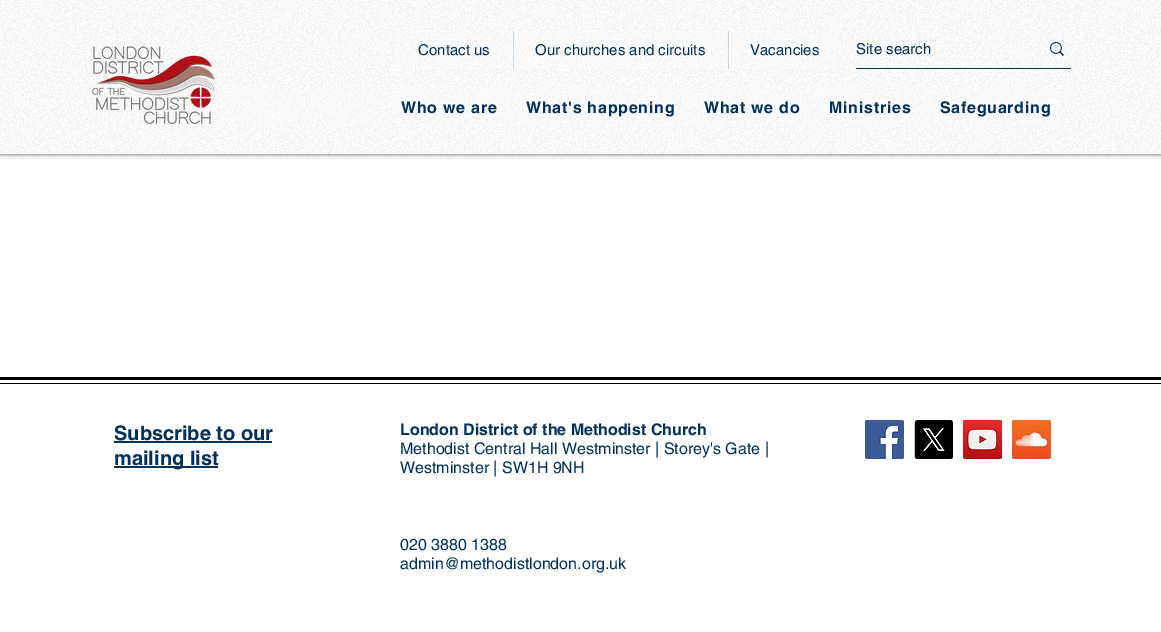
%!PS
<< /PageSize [1161 632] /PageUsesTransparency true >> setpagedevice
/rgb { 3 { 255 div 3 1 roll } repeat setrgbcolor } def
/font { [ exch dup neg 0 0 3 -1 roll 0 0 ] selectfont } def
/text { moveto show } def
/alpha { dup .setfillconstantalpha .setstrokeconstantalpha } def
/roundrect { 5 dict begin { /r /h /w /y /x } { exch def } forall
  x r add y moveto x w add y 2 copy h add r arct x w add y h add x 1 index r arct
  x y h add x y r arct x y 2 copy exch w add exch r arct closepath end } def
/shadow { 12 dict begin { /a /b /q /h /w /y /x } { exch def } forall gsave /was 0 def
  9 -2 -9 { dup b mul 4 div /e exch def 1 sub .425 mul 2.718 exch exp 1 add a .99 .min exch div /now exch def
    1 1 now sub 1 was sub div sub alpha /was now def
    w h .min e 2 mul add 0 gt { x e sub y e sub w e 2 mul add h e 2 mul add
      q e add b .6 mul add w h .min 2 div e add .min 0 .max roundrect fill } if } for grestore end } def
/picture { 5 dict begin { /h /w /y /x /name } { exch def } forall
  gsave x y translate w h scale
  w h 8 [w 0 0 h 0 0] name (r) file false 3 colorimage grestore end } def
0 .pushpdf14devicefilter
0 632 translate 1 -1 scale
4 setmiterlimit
255 255 255 rgb
0 0 1161 632 rectfill
0 0 0 rgb
0 0 1161 154 0 2.5 0.7 shadow
255 255 255 rgb
0 0 1161 154 rectfill
(img_01.rgb) 0 0 1161 154 picture
(img_02.rgb) 92 46 123 78 picture
0.25 alpha
396 31 445 38 rectfill
0.51 alpha
131 183 230 rgb
513 31 1 38 rectfill
728 31 1 38 rectfill
1 alpha
0 48 91 rgb
856 68 215 1 rectfill
(img_03.rgb) 1050 42 14 14 picture
0.25 alpha
255 255 255 rgb
221 88 841 39 rectfill
1 alpha
0 0 0 rgb
0 377 1161 3 rectfill
0 383 1161 1 rectfill
0 48 91 rgb
114 441 158 2 rectfill
114 466 104 2 rectfill
(img_04.rgb) 865 420 39 39 picture
(img_05.rgb) 914 420 39 39 picture
(img_06.rgb) 963 420 39 39 picture
(img_07.rgb) 1012 420 39 39 picture
/helvetica-Regular 15 font
(Contact us) 418 55 text
(Our churches and circuits) 535 55 text
(Vacancies) 750 55 text
(Site search) 856 54 text
/helvetica-Bold 16 font
401 113 moveto 0.75 0 (Who we are) ashow
526 113 moveto 0.75 0 (What's happening) ashow
704 113 moveto 0.75 0 (What we do) ashow
829 113 moveto 0.75 0 (Ministries) ashow
940 113 moveto 0.75 0 (Safeguarding) ashow
/helvetica-Bold 20 font
(Subscribe to our) 114 440 text
(mailing list) 114 465 text
/helvetica-Bold 16 font
(London District of the Methodist Church) 400 435 text
/helvetica-Regular 16 font
(Methodist Central Hall Westminster | Storey's Gate |) 400 454 text
(Westminster | SW1H 9NH) 400 473 text
(020 3880 1388) 400 550 text
(admin@methodistlondon.org.uk) 400 569 text
.poppdf14devicefilter showpage
